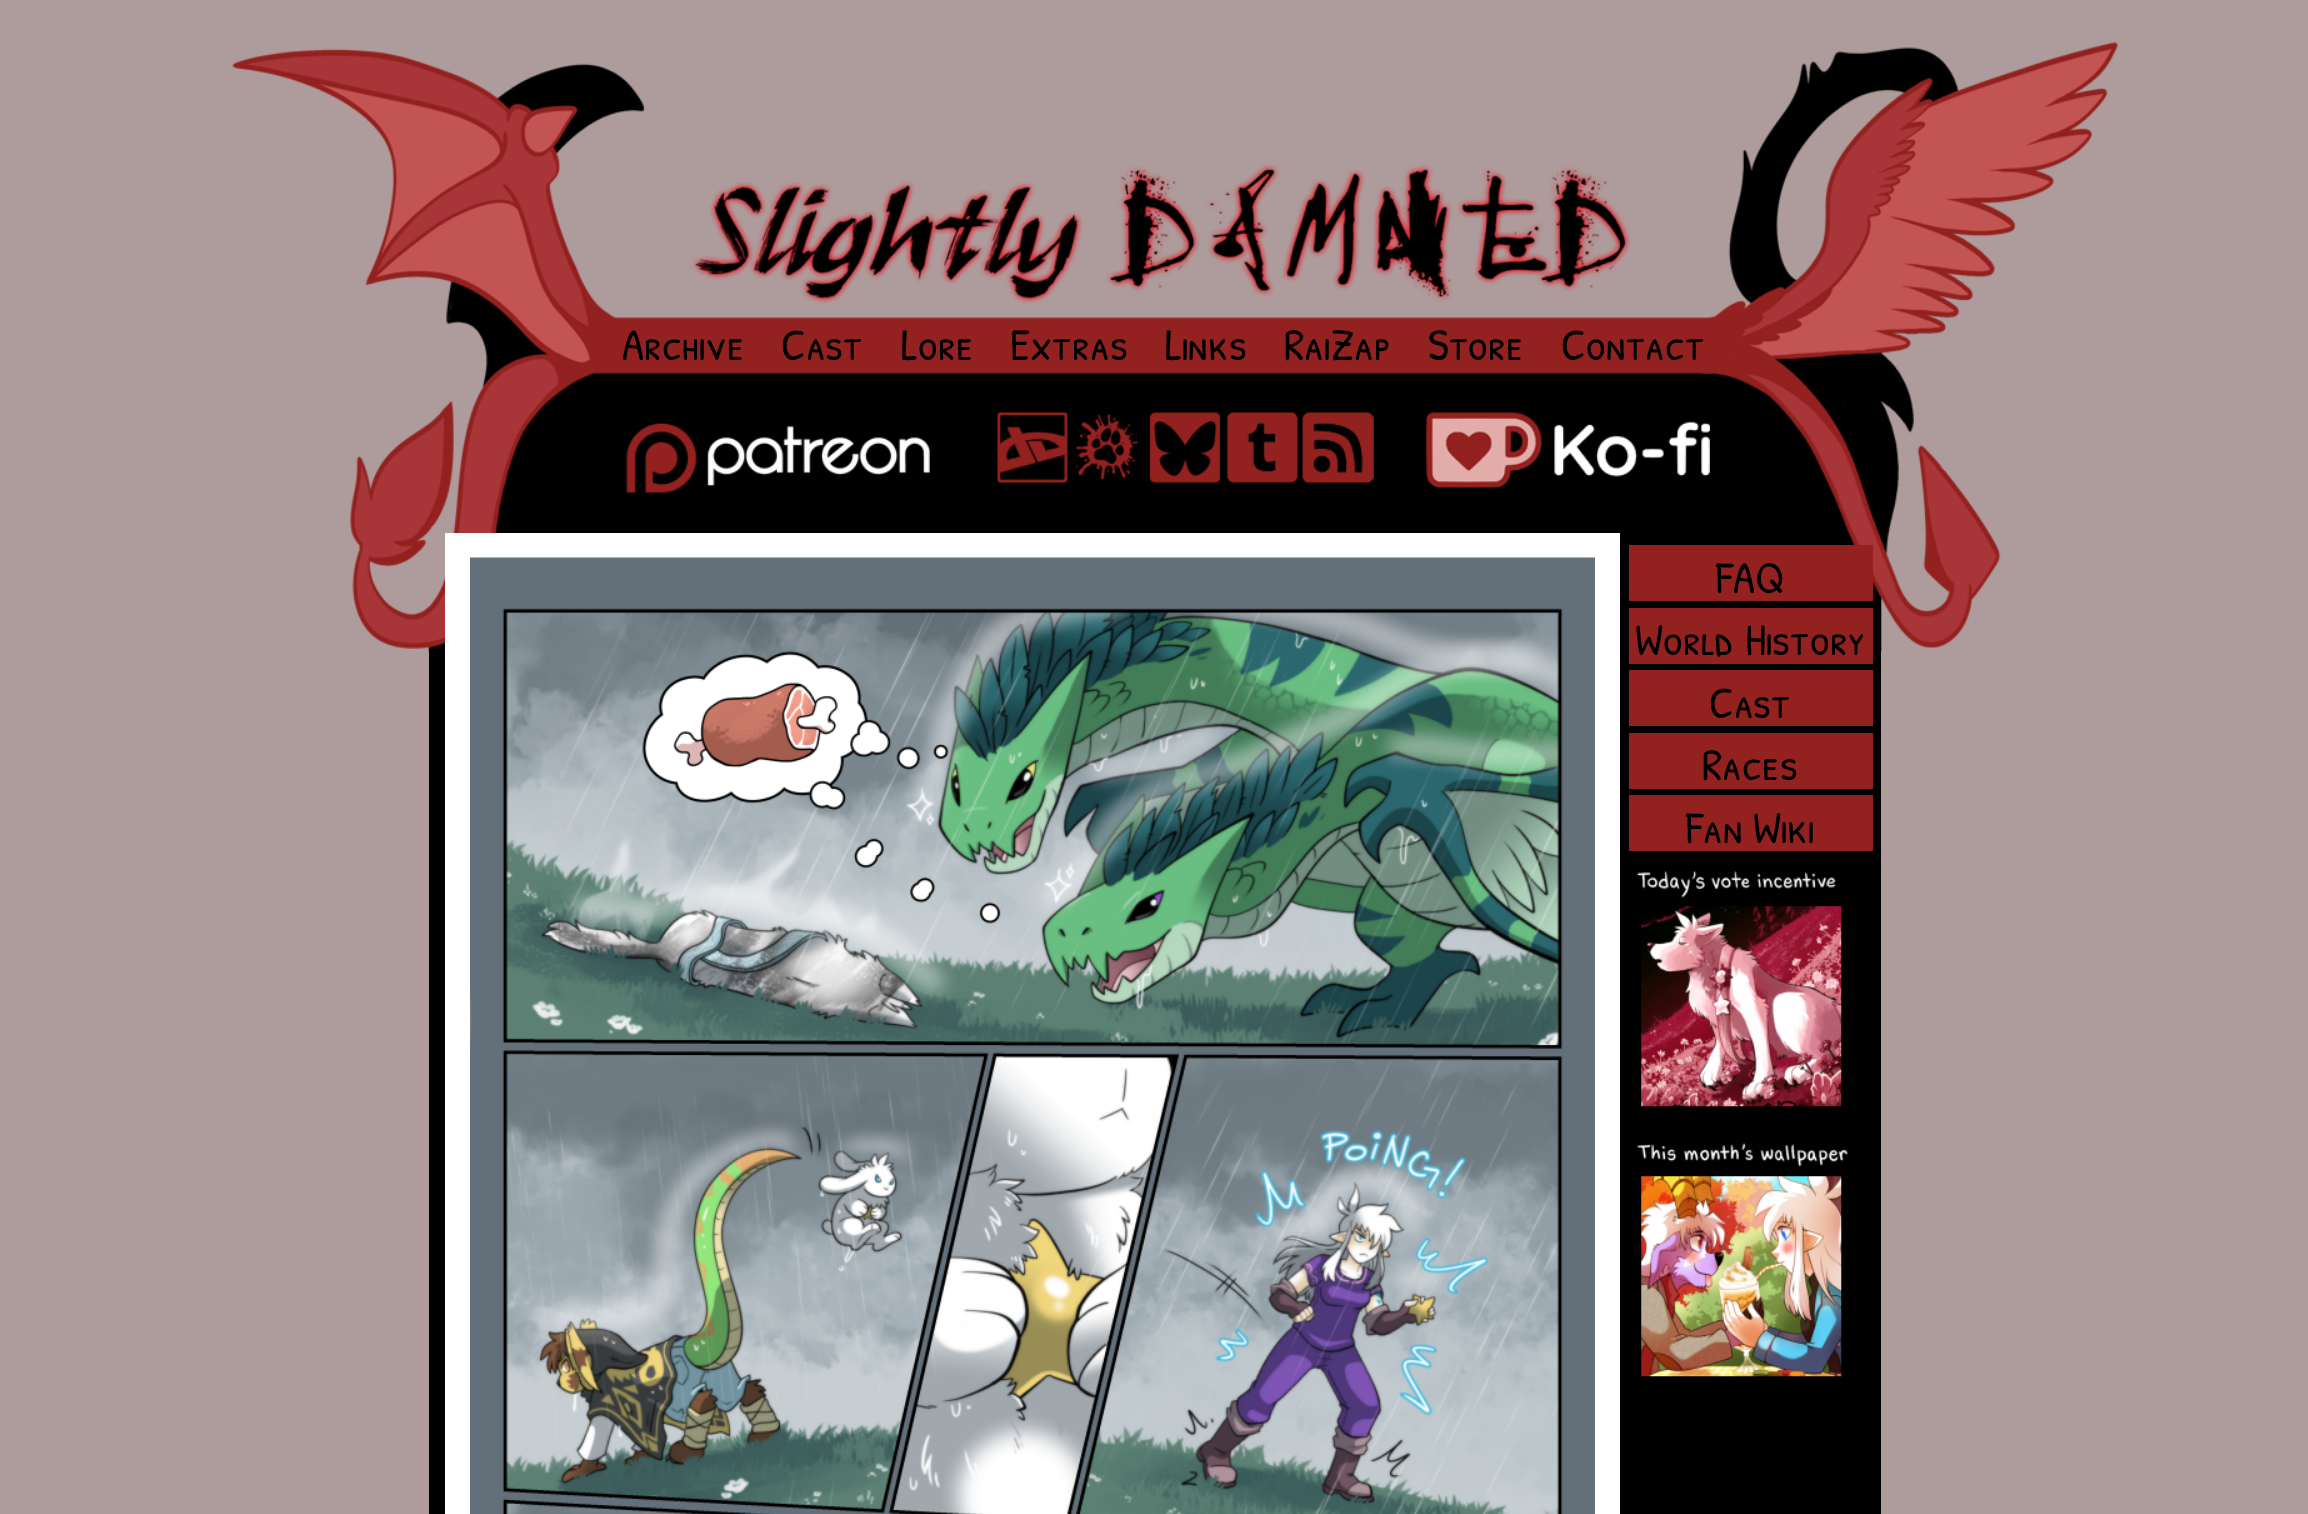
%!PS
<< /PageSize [2308 1514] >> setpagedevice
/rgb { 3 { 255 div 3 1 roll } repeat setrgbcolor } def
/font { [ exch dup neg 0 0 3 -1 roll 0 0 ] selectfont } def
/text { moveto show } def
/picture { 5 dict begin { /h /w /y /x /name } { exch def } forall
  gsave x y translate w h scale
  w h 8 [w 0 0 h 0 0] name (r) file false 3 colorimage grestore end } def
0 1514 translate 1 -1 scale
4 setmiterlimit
174 156 156 rgb
0 0 2308 1514 rectfill
0 0 0 rgb
429 651 1452 863 rectfill
(img_01.rgb) 232 42 1886 610 picture
(img_02.rgb) 692 164 939 140 picture
(img_03.rgb) 626 422 304 71 picture
(img_04.rgb) 997 412 71 71 picture
(img_05.rgb) 1075 413 64 67 picture
(img_06.rgb) 1150 412 70 71 picture
(img_07.rgb) 1226 412 72 71 picture
(img_08.rgb) 1302 412 72 71 picture
(img_09.rgb) 1426 412 284 76 picture
255 255 255 rgb
445 533 1175 981 rectfill
(img_10.rgb) 470 557 1125 957 picture
147 33 31 rgb
1629 545 244 56 rectfill
1629 608 244 56 rectfill
1629 670 244 56 rectfill
1629 733 244 56 rectfill
1629 795 244 56 rectfill
(img_11.rgb) 1637 871 199 27 picture
(img_12.rgb) 1641 906 201 201 picture
(img_13.rgb) 1636 1143 212 24 picture
(img_14.rgb) 1641 1176 201 201 picture
/PatrickHandSC-Regular 45 font
0 0 0 rgb
(Archive) 622 360 text
(Cast) 781 360 text
(Lore) 901 360 text
(Extras) 1010 360 text
(Links) 1165 360 text
(RaiZap) 1284 360 text
(Store) 1428 360 text
(Contact) 1561 360 text
(FAQ) 1716 593 text
(World History) 1635 655 text
(Cast) 1709 718 text
(Races) 1702 780 text
(Fan Wiki) 1686 843 text
showpage
